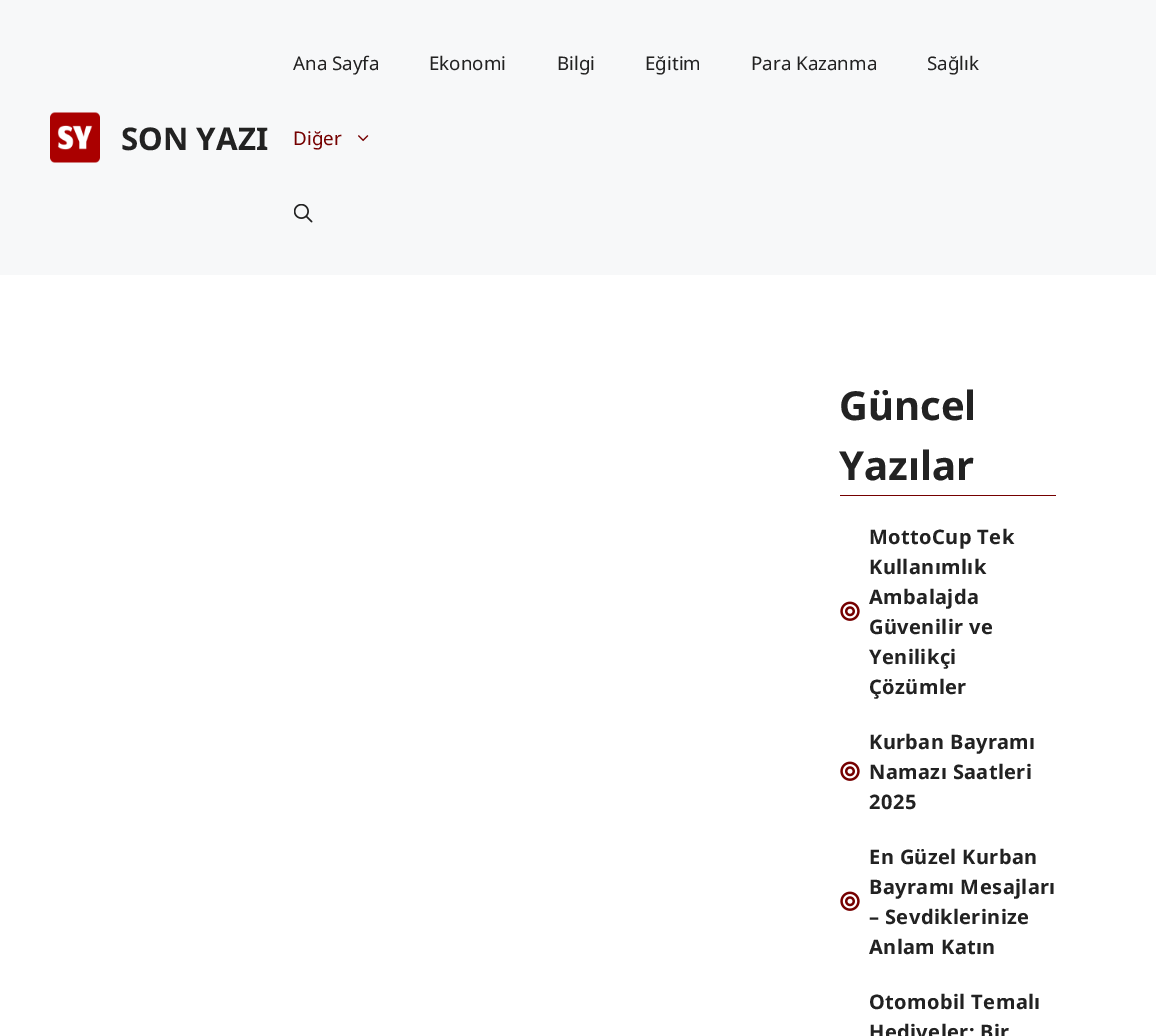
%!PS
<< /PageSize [1156 1036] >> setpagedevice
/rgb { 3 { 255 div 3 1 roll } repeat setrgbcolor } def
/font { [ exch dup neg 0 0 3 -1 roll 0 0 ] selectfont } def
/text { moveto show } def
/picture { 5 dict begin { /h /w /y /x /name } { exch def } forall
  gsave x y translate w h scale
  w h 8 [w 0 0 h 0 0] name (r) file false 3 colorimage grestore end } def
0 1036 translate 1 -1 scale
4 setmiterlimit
255 255 255 rgb
0 0 1156 1036 rectfill
247 248 249 rgb
0 0 1156 275 rectfill
(img_01.rgb) 50 112 50 51 picture
(img_02.rgb) 358 135 11 7 picture
(img_03.rgb) 294 204 19 19 picture
117 0 0 rgb
840 495 216 1 rectfill
(img_04.rgb) 840 601 20 20 picture
(img_04.rgb) 840 761 20 20 picture
(img_04.rgb) 840 891 20 20 picture
/NotoSans-Bold 31.25 font
34 34 34 rgb
(SON YAZI) 121 150 text
/NotoSans-Regular 18.75 font
(Ana Sayfa) 293 70 text
(Ekonomi) 429 70 text
(Bilgi) 557 70 text
(Eğitim) 645 70 text
(Para Kazanma) 751 70 text
(Sağlık) 927 70 text
117 0 0 rgb
(Diğer) 293 145 text
/NotoSans-Bold 40 font
34 34 34 rgb
(Güncel) 839 420 text
(Yazılar) 839 480 text
/NotoSans-Bold 20 font
869 544 moveto 0.4 0 (MottoCup Tek) ashow
869 574 moveto 0.4 0 (Kullanımlık) ashow
869 604 moveto 0.4 0 (Ambalajda) ashow
869 634 moveto 0.4 0 (Güvenilir ve) ashow
869 664 moveto 0.4 0 (Yenilikçi) ashow
869 694 moveto 0.4 0 (Çözümler) ashow
869 749 moveto 0.4 0 (Kurban Bayramı) ashow
869 779 moveto 0.4 0 (Namazı Saatleri) ashow
869 809 moveto 0.4 0 (2025) ashow
869 864 moveto 0.4 0 (En Güzel Kurban) ashow
869 894 moveto 0.4 0 (Bayramı Mesajları) ashow
869 924 moveto 0.4 0 (– Sevdiklerinize) ashow
869 954 moveto 0.4 0 (Anlam Katın) ashow
869 1009 moveto 0.4 0 (Otomobil Temalı) ashow
869 1039 moveto 0.4 0 (Hediyeler: Bir) ashow
showpage
